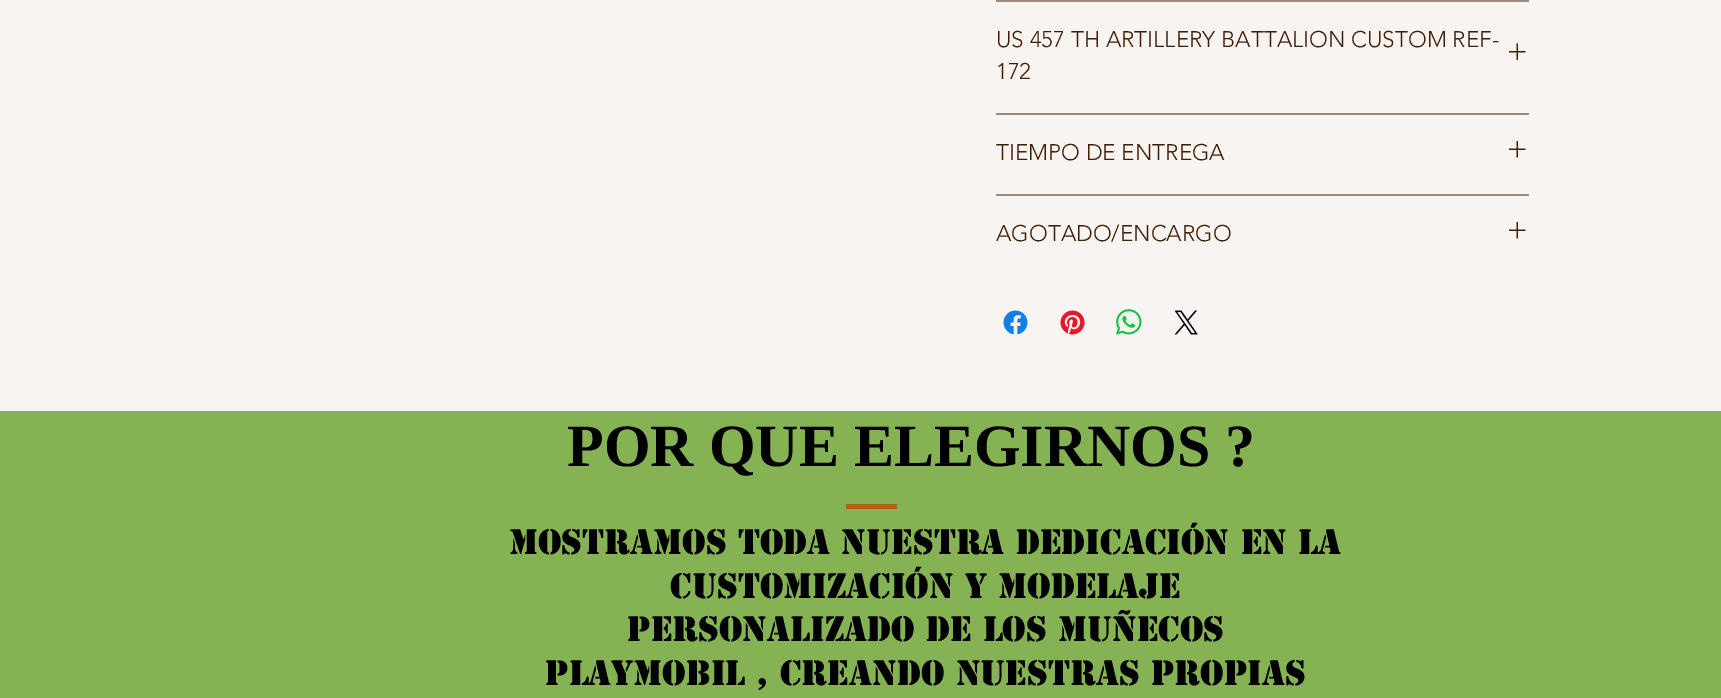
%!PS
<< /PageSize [1721 698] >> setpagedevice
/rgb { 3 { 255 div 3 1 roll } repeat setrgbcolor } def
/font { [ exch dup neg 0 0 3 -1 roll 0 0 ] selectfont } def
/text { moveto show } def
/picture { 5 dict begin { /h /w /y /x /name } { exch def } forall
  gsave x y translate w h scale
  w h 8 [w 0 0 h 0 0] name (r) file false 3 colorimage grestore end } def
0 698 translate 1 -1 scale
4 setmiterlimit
248 244 241 rgb
0 0 1721 698 rectfill
157 137 124 rgb
996 0 533 2 rectfill
996 113 533 2 rectfill
(img_01.rgb) 1509 43 17 17 picture
996 194 533 2 rectfill
(img_02.rgb) 1509 141 17 17 picture
(img_02.rgb) 1509 222 17 17 picture
(img_03.rgb) 1003 310 25 25 picture
(img_04.rgb) 1060 310 25 25 picture
(img_05.rgb) 1116 309 26 26 picture
(img_06.rgb) 1174 310 24 25 picture
133 179 84 rgb
0 411 1721 287 rectfill
181 96 22 rgb
846 504 51 5 rectfill
/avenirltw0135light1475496-Light 22.5 font
65 30 6 rgb
(US 457 TH ARTILLERY BATTALION CUSTOM REF-) 996 47 text
(172) 996 79 text
(TIEMPO DE ENTREGA) 996 160 text
(AGOTADO/ENCARGO) 996 241 text
/LiberationSerif-Bold 60 font
0 0 0 rgb
(POR QUE ELEGIRNOS ?) 567 466 text
/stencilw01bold-Bold 33 font
(MOSTRAMOS TODA NUESTRA DEDICACIÓN EN LA) 509 554 text
(CUSTOMIZACIÓN Y MODELAJE) 670 598 text
(PERSONALIZADO DE LOS MUÑECOS) 627 641 text
(PLAYMOBIL , CREANDO NUESTRAS PROPIAS) 545 685 text
showpage
